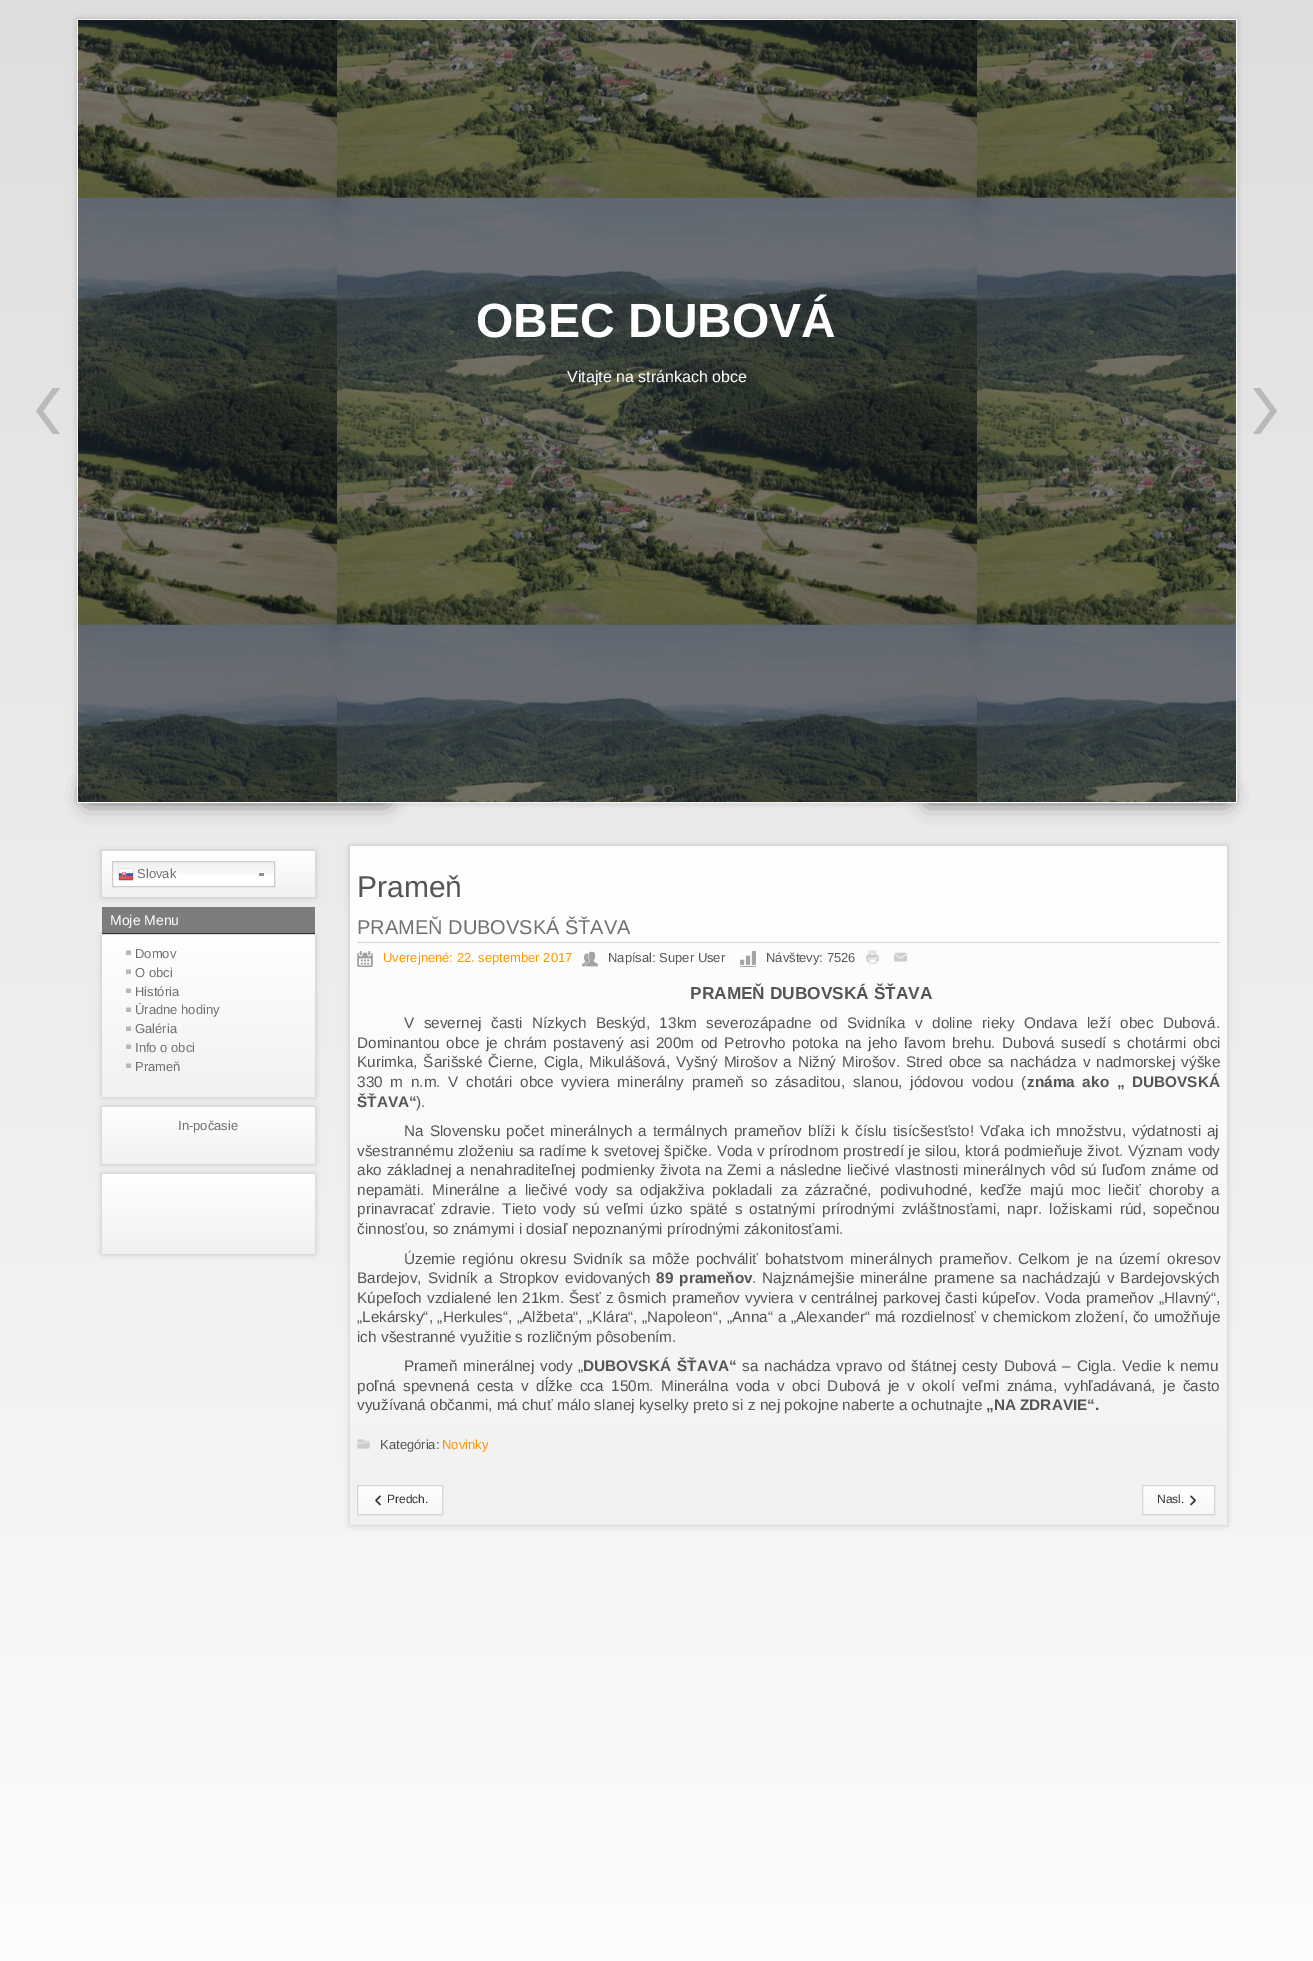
%!PS
<< /PageSize [1313 1961] /PageUsesTransparency true >> setpagedevice
/rgb { 3 { 255 div 3 1 roll } repeat setrgbcolor } def
/font { [ exch dup neg 0 0 3 -1 roll 0 0 ] selectfont } def
/text { moveto show } def
/alpha { dup .setfillconstantalpha .setstrokeconstantalpha } def
/circle { newpath 0 360 arc closepath } def
/roundrect { 5 dict begin { /r /h /w /y /x } { exch def } forall
  x r add y moveto x w add y 2 copy h add r arct x w add y h add x 1 index r arct
  x y h add x y r arct x y 2 copy exch w add exch r arct closepath end } def
/shadow { 12 dict begin { /a /b /q /h /w /y /x } { exch def } forall gsave /was 0 def
  9 -2 -9 { dup b mul 4 div /e exch def 1 sub .425 mul 2.718 exch exp 1 add a .99 .min exch div /now exch def
    1 1 now sub 1 was sub div sub alpha /was now def
    w h .min e 2 mul add 0 gt { x e sub y e sub w e 2 mul add h e 2 mul add
      q e add b .6 mul add w h .min 2 div e add .min 0 .max roundrect fill } if } for grestore end } def
/picture { 5 dict begin { /h /w /y /x /name } { exch def } forall
  gsave x y translate w h scale
  w h 8 [w 0 0 h 0 0] name (r) file false 3 colorimage grestore end } def
0 .pushpdf14devicefilter
0 1961 translate 1 -1 scale
4 setmiterlimit
255 255 255 rgb
0 0 1313 1961 rectfill
gsave 0 0 moveto 1313 0 rlineto 0 1961 rlineto -1313 0 rlineto closepath clip newpath
<< /ShadingType 2 /ColorSpace /DeviceRGB /Coords [657 1961 657 0] /Extend [true true] /Function << /FunctionType 2 /Domain [0 1] /C0 [0.988 0.988 0.988] /C1 [0.871 0.871 0.871] /N 1 >> >> shfill grestore
51 51 51 rgb
77 19 1160 784 0 3 0.25 shadow
0 0 0 rgb
87 788 300 15 0 10 0.5 shadow
927 788 300 15 0 10 0.5 shadow
245 245 245 rgb
77.5 19.5 1159 783 rectstroke
(img_01.rgb) 78 20 1158 782 picture
186 186 186 rgb
36 411 moveto 17 -23 rlineto 7 0 rlineto -17 23 rlineto 17 23 rlineto -7 0 rlineto closepath fill
1277 411 moveto -17 -23 rlineto -7 0 rlineto 17 23 rlineto -17 23 rlineto 7 0 rlineto closepath fill
84 84 84 rgb
649 791 5.5 circle gsave fill grestore
stroke
668 791 5.5 circle stroke
51 51 51 rgb
102 851 213 46 0 3 0.25 shadow
gsave 102 851 moveto 213 0 rlineto 0 46 rlineto -213 0 rlineto closepath clip newpath
<< /ShadingType 2 /ColorSpace /DeviceRGB /Coords [209 851 209 897] /Extend [true true] /Function << /FunctionType 2 /Domain [0 1] /C0 [1 1 1] /C1 [0.945 0.945 0.945] /N 1 >> >> shfill grestore
255 255 255 rgb
113 875 161 11 rectfill
(img_02.rgb) 113 862 161 13 picture
143 143 143 rgb
259 873 5 3 rectfill
204 204 204 rgb
112.5 861.5 162 25 rectstroke
(img_03.rgb) 118 868 16 14 picture
125 125 125 rgb
102 907 213 26 rectfill
51 51 51 rgb
102 933 213 1 rectfill
102 935 213 162 0 3 0.25 shadow
gsave 102 935 moveto 213 0 rlineto 0 162 rlineto -213 0 rlineto closepath clip newpath
<< /ShadingType 2 /ColorSpace /DeviceRGB /Coords [209 935 209 1097] /Extend [true true] /Function << /FunctionType 2 /Domain [0 1] /C0 [1 1 1] /C1 [0.945 0.945 0.945] /N 1 >> >> shfill grestore
184 184 184 rgb
126 955 moveto 0 -4.5 rlineto 5 0 rlineto 0 4.5 rlineto closepath fill
126 974 moveto 0 -4.5 rlineto 5 0 rlineto 0 4.5 rlineto closepath fill
126 993 moveto 0 -4.5 rlineto 5 0 rlineto 0 4.5 rlineto closepath fill
126 1012 moveto 0 -4.5 rlineto 5 0 rlineto 0 4.5 rlineto closepath fill
126 1031 moveto 0 -4.5 rlineto 5 0 rlineto 0 4.5 rlineto closepath fill
126 1049 moveto 0 -4.5 rlineto 5 0 rlineto 0 4.5 rlineto closepath fill
126 1068 moveto 0 -4.5 rlineto 5 0 rlineto 0 4.5 rlineto closepath fill
51 51 51 rgb
102 1107 213 57 0 3 0.25 shadow
gsave 102 1107 moveto 213 0 rlineto 0 57 rlineto -213 0 rlineto closepath clip newpath
<< /ShadingType 2 /ColorSpace /DeviceRGB /Coords [209 1107 209 1164] /Extend [true true] /Function << /FunctionType 2 /Domain [0 1] /C0 [1 1 1] /C1 [0.945 0.945 0.945] /N 1 >> >> shfill grestore
102 1174 213 80 0 3 0.25 shadow
gsave 102 1174 moveto 213 0 rlineto 0 80 rlineto -213 0 rlineto closepath clip newpath
<< /ShadingType 2 /ColorSpace /DeviceRGB /Coords [209 1174 209 1254] /Extend [true true] /Function << /FunctionType 2 /Domain [0 1] /C0 [1 1 1] /C1 [0.945 0.945 0.945] /N 1 >> >> shfill grestore
350 846 877 679 0 3 0.25 shadow
gsave 350 846 moveto 877 0 rlineto 0 679 rlineto -877 0 rlineto closepath clip newpath
<< /ShadingType 2 /ColorSpace /DeviceRGB /Coords [789 846 789 1525] /Extend [true true] /Function << /FunctionType 2 /Domain [0 1] /C0 [1 1 1] /C1 [0.945 0.945 0.945] /N 1 >> >> shfill grestore
214 214 214 rgb
357 942 863 1 rectfill
(img_04.rgb) 357 951 16 16 picture
(img_05.rgb) 582 951 16 16 picture
(img_06.rgb) 740 951 16 16 picture
(img_07.rgb) 866 950 13 14 picture
(img_08.rgb) 894 952 13 10 picture
(img_09.rgb) 357 1439 13 10 picture
gsave 358 1486 moveto 84 0 rlineto 0 28 rlineto -84 0 rlineto closepath clip newpath
<< /ShadingType 2 /ColorSpace /DeviceRGB /Coords [400 1486 400 1514] /Extend [true true] /Function << /FunctionType 2 /Domain [0 1] /C0 [1 1 1] /C1 [0.969 0.969 0.969] /N 1 >> >> shfill grestore
212 212 212 rgb
357.5 1485.5 85 29 rectstroke
(img_10.rgb) 375 1495 6 11 picture
gsave 1143 1486 moveto 71 0 rlineto 0 28 rlineto -71 0 rlineto closepath clip newpath
<< /ShadingType 2 /ColorSpace /DeviceRGB /Coords [1179 1486 1179 1514] /Extend [true true] /Function << /FunctionType 2 /Domain [0 1] /C0 [1 1 1] /C1 [0.969 0.969 0.969] /N 1 >> >> shfill grestore
1142.5 1485.5 72 29 rectstroke
(img_11.rgb) 1190 1495 6 11 picture
/LiberationSans-Bold 48 font
255 255 255 rgb
(OBEC DUBOVÁ) 476 337 text
/LiberationSans-Regular 16 font
(Vitajte na stránkach obce) 567 382 text
/LiberationSans-Regular 13 font
112 112 112 rgb
(Slovak) 137 878 text
/LiberationSans-Regular 14 font
255 255 255 rgb
(Moje Menu) 110 925 text
/LiberationSans-Regular 13 font
112 112 112 rgb
(Domov) 135 958 text
(O obci) 135 977 text
(História) 135 996 text
(Úradne hodiny) 135 1014 text
(Galéria) 135 1033 text
(Info o obci) 135 1052 text
(Prameň) 135 1071 text
(In-počasie) 178 1130 text
/LiberationSans-Regular 30 font
85 85 85 rgb
(Prameň) 357 897 text
/LiberationSans-Regular 20 font
112 112 112 rgb
(PRAMEŇ DUBOVSKÁ ŠŤAVA) 357 934 text
/LiberationSans-Regular 13 font
250 150 0 rgb
(Uverejnené: 22. september 2017) 383 962 text
85 85 85 rgb
(Napísal: Super User) 608 962 text
(Návštevy: 7526) 766 962 text
/LiberationSans-Bold 17.3 font
(PRAMEŇ DUBOVSKÁ ŠŤAVA) 690 999 text
/LiberationSans-Regular 15.33 font
404 1028 moveto 5.1 0 32 (V severnej časti Nízkych Beskýd, 13km severozápadne od Svidníka v doline rieky Ondava leží obec Dubová.) widthshow
357 1048 moveto 2.25 0 32 (Dominantou obce je chrám postavený asi 200m od Petrovho potoka na jeho ľavom brehu. Dubová susedí s chotármi obci) widthshow
357 1067 moveto 1.75 0 32 (Kurimka, Šarišské Čierne, Cigla, Mikulášová, Vyšný Mirošov a Nižný Mirošov. Stred obce sa nachádza v nadmorskej výške) widthshow
357 1087 moveto 3.5 0 32 (330 m n.m. V chotári obce vyviera minerálny prameň so zásaditou, slanou, jódovou vodou \() widthshow
/LiberationSans-Bold 15.33 font
1027 1087 moveto 3.5 0 32 (známa ako „ DUBOVSKÁ) widthshow
(ŠŤAVA“) 357 1107 text
/LiberationSans-Regular 15.33 font
(\).) 416 1107 text
404 1136 moveto 1.75 0 32 (Na Slovensku počet minerálnych a termálnych prameňov blíži k číslu tisícšesťsto! Vďaka ich množstvu, výdatnosti aj) widthshow
357 1156 moveto 0.25 0 32 (všestrannému zloženiu sa radíme k svetovej špičke. Voda v prírodnom prostredí je silou, ktorá podmieňuje život. Význam vody) widthshow
357 1175 moveto 0.75 0 32 (ako základnej a nenahraditeľnej podmienky života na Zemi a následne liečivé vlastnosti minerálnych vôd sú ľuďom známe od) widthshow
357 1195 moveto 3.9 0 32 (nepamäti. Minerálne a liečivé vody sa odjakživa pokladali za zázračné, podivuhodné, keďže majú moc liečiť choroby a) widthshow
357 1214 moveto 2.9 0 32 (prinavracať zdravie. Tieto vody sú veľmi úzko späté s ostatnými prírodnými zvláštnosťami, napr. ložiskami rúd, sopečnou) widthshow
(činnosťou, so známymi i dosiaľ nepoznanými prírodnými zákonitosťami.) 357 1234 text
404 1264 moveto 2.25 0 32 (Územie regiónu okresu Svidník sa môže pochváliť bohatstvom minerálnych prameňov. Celkom je na území okresov) widthshow
357 1283 moveto 1.75 0 32 (Bardejov, Svidník a Stropkov evidovaných) widthshow
/LiberationSans-Bold 15.33 font
656 1283 moveto 2 0 32 (89 prameňov) widthshow
/LiberationSans-Regular 15.33 font
752 1283 moveto 1.75 0 32 (. Najznámejšie minerálne pramene sa nachádzajú v Bardejovských) widthshow
357 1303 moveto 0.7 0 32 (Kúpeľoch vzdialené len 21km. Šesť z ôsmich prameňov vyviera v centrálnej parkovej časti kúpeľov. Voda prameňov „Hlavný“,) widthshow
357 1322 moveto 0.4 0 32 („Lekársky“, „Herkules“, „Alžbeta“, „Klára“, „Napoleon“, „Anna“ a „Alexander“ má rozdielnosť v chemickom zložení, čo umožňuje) widthshow
(ich všestranné využitie s rozličným pôsobením.) 357 1342 text
(P) 404 1371 text
414 1371 moveto 1.6 0 32 (rameň minerálnej vody „) widthshow
/LiberationSans-Bold 15.33 font
583 1371 moveto 2 0 32 (DUBOVSKÁ ŠŤAVA“) widthshow
/LiberationSans-Regular 15.33 font
742 1371 moveto 1.6 0 32 (sa nachádza vpravo od štátnej cesty Dubová – Cigla. Vedie k nemu) widthshow
357 1391 moveto 3.25 0 32 (poľná spevnená cesta v dĺžke cca 150m. Minerálna voda v obci Dubová je v okolí veľmi známa, vyhľadávaná, je často) widthshow
(využívaná občanmi, má chuť málo slanej kyselky preto si z nej pokojne naberte a ochutnajte) 357 1410 text
/LiberationSans-Bold 15.33 font
(„NA ZDRAVIE“.) 986 1410 text
/LiberationSans-Regular 13 font
(Kategória:) 380 1449 text
250 150 0 rgb
(Novinky) 442 1449 text
/LiberationSans-Regular 12 font
51 51 51 rgb
(Predch.) 387 1503 text
(Nasl.) 1157 1503 text
.poppdf14devicefilter showpage
